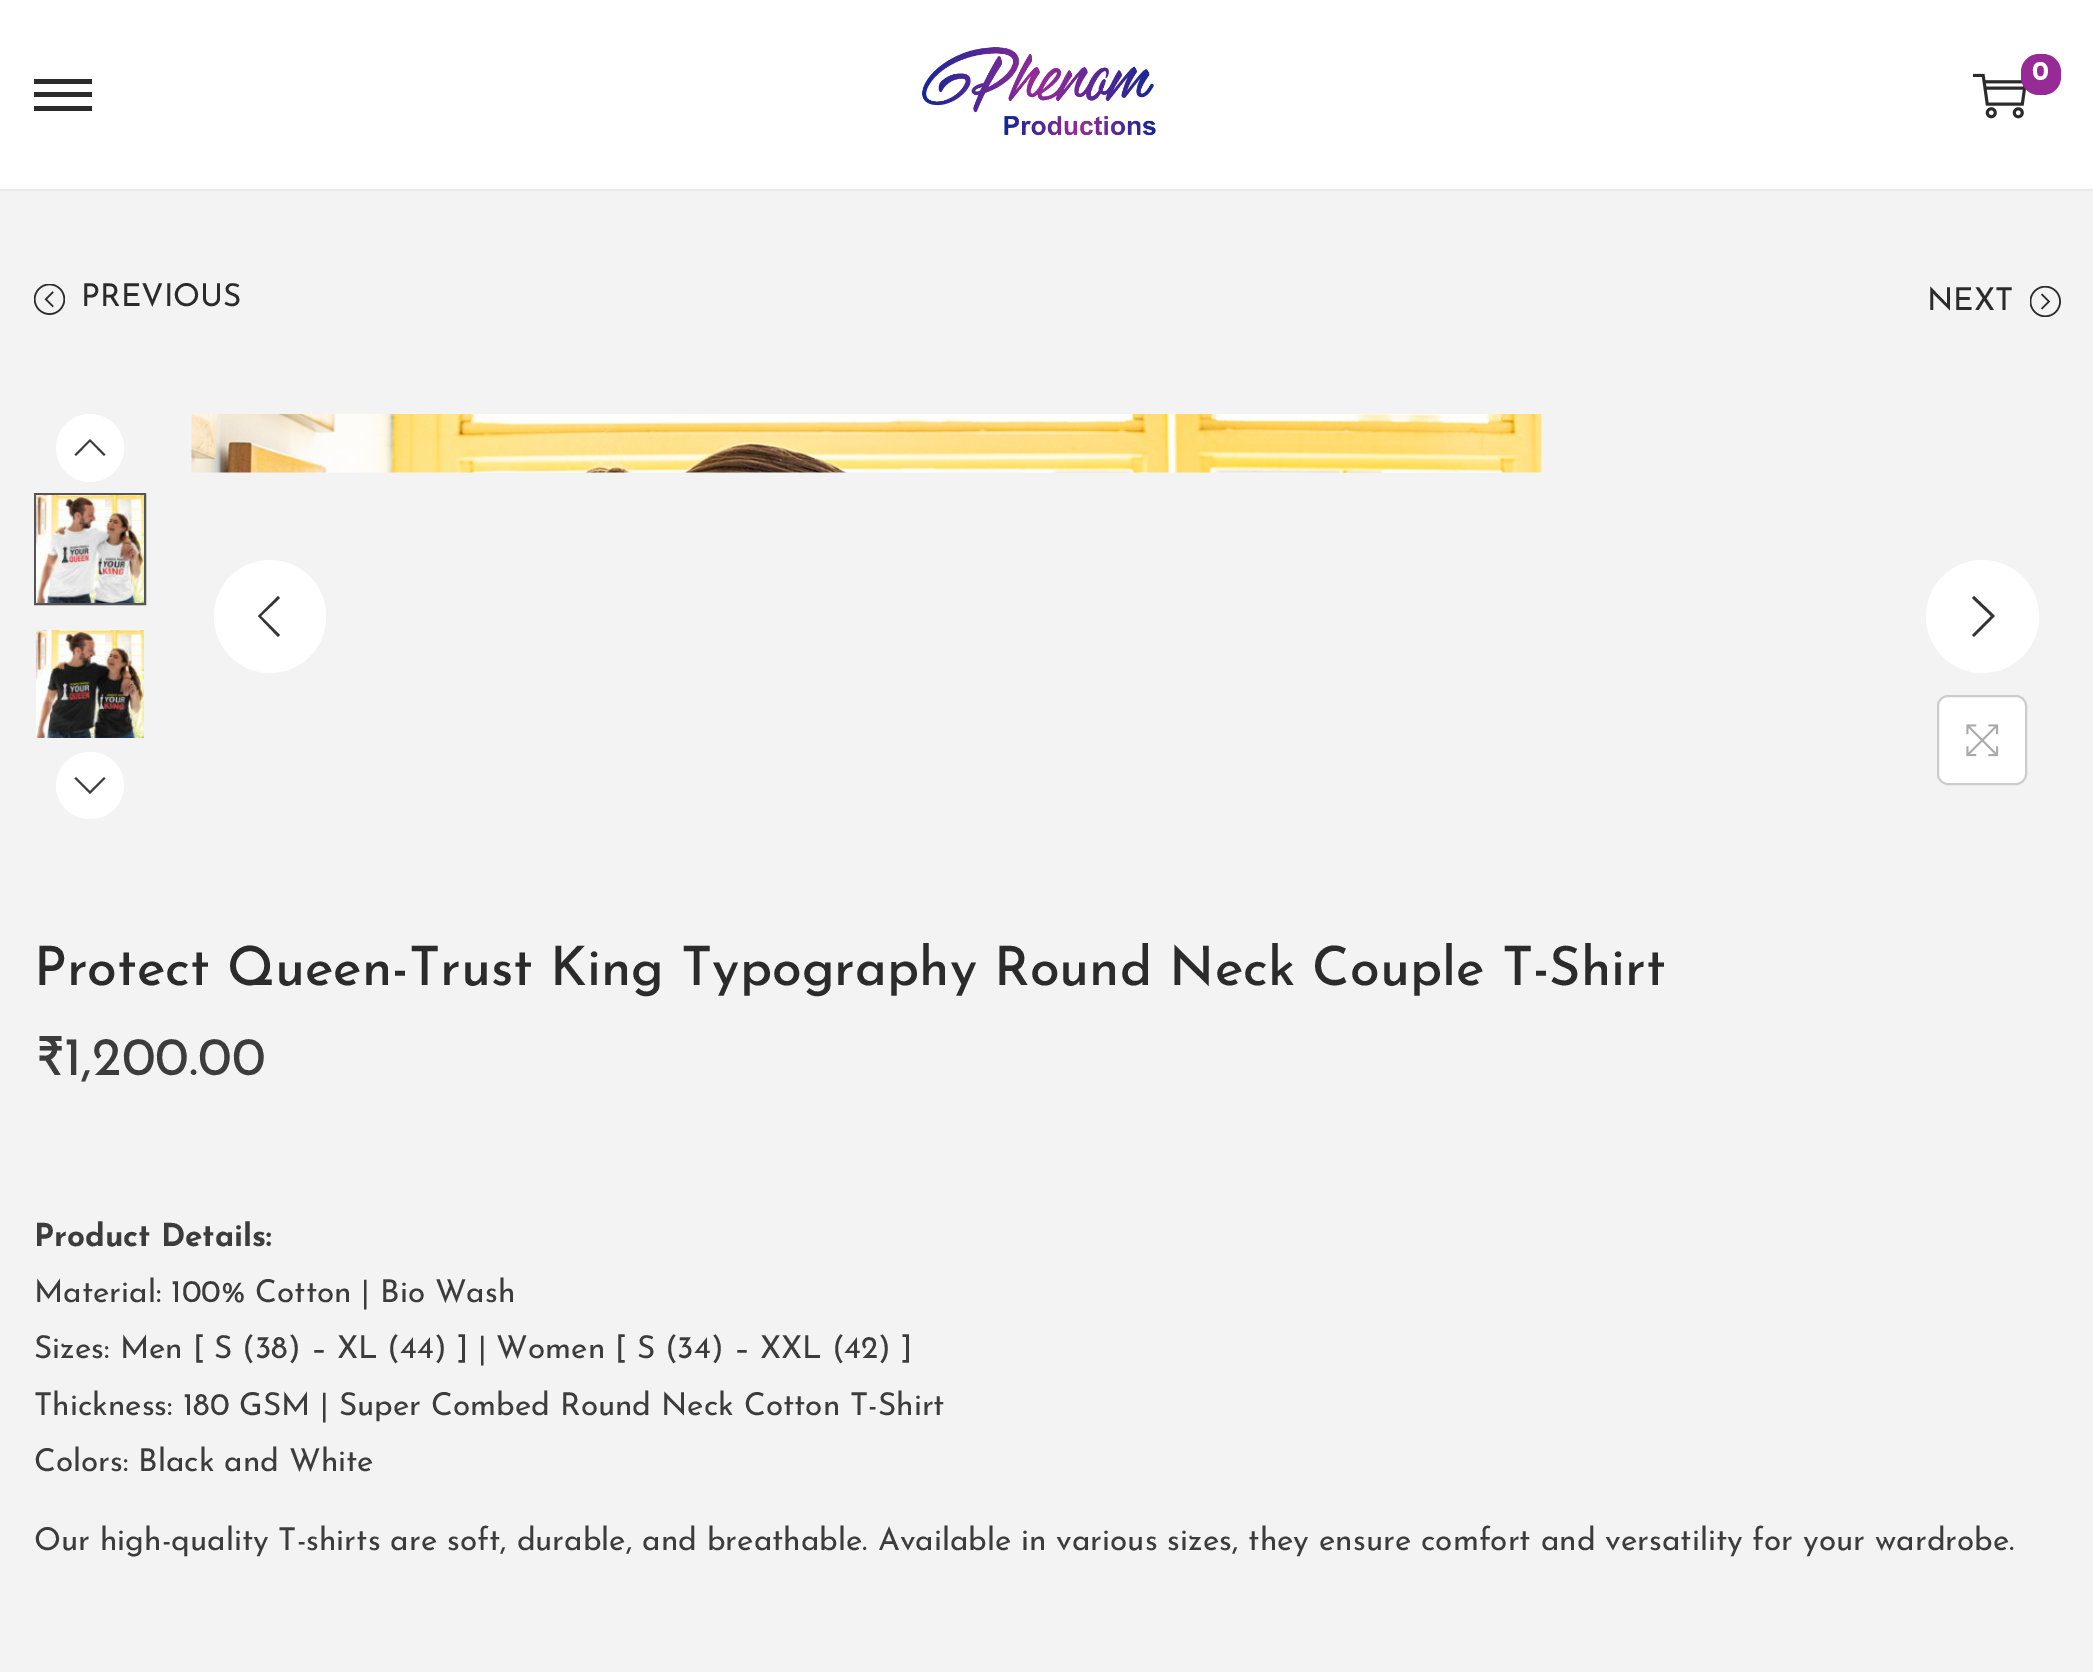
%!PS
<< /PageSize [2093 1672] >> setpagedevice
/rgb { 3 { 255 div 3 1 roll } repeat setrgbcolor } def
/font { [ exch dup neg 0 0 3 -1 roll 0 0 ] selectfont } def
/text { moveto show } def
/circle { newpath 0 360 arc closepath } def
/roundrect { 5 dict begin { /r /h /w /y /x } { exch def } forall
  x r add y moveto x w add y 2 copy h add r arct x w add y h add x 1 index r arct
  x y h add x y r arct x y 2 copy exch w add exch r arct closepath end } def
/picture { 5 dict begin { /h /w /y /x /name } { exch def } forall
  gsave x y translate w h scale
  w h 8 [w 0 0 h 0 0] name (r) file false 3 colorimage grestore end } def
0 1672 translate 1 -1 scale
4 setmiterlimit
255 255 255 rgb
0 0 2093 1672 rectfill
234 234 234 rgb
0 189 2093 2 rectfill
(img_01.rgb) 922 47 234 89 picture
(img_02.rgb) 1973 73 53 46 picture
151 42 151 rgb
2021 54 40 41 18 roundrect fill
43 43 43 rgb
34 92 58 5 rectfill
34 79 58 5 rectfill
34 106 58 5 rectfill
243 243 243 rgb
0 191 2093 1481 rectfill
(img_03.rgb) 34 284 31 31 picture
(img_04.rgb) 2030 286 31 31 picture
255 255 255 rgb
90 448 34 circle fill
60 60 60 rgb
105.5 454.5 moveto -1.5 1.5 rlineto -14 -14.5 rlineto -14 14.5 rlineto -1.5 -1.5 rlineto 15.5 -15.5 rlineto closepath fill
85 85 85 rgb
2 setlinewidth
35 494 110 110 rectstroke
(img_05.rgb) 36 495 108 108 picture
(img_06.rgb) 36 630 108 108 picture
255 255 255 rgb
56 752 68 67 33.5 roundrect fill
60 60 60 rgb
105.5 778.5 moveto -15.5 15.5 rlineto -15.5 -15.5 rlineto 1.5 -1.5 rlineto 14 14 rlineto 14 -14 rlineto closepath fill
(img_07.rgb) 191 414 1351 59 picture
255 255 255 rgb
214 560 112 113 56 roundrect fill
51 51 51 rgb
261 616 moveto 19 19 rlineto -2 2 rlineto -20 -21 rlineto 20 -20 rlineto 2 2 rlineto closepath fill
255 255 255 rgb
1982.5 616.5 56.5 circle fill
51 51 51 rgb
1995 616 moveto -21 21 rlineto -2 -2 rlineto 19 -19 rlineto -19 -18 rlineto 2 -2 rlineto closepath fill
255 255 255 rgb
1938 696 88 88 10 roundrect gsave fill grestore
204 204 204 rgb
stroke
(img_08.rgb) 1966 724 33 33 picture
/JosefinSans-Bold 27 font
255 255 255 rgb
(0) 2032 80 text
/JosefinSans-Regular 31.5 font
43 43 43 rgb
(PREVIOUS) 81 306 text
(NEXT) 1927 310 text
/JosefinSans-Medium 54 font
(Protect Queen-Trust King Typography Round Neck Couple T-Shirt) 34 985 text
/JosefinSans-Regular 54 font
60 60 60 rgb
(₹1,200.00) 34 1075 text
/JosefinSans-Bold 31.5 font
(Product Details:) 34 1246 text
/JosefinSans-Regular 31.5 font
(Material: 100% Cotton | Bio Wash) 34 1302 text
(Sizes: Men [ S \(38\) – XL \(44\) ] | Women [ S \(34\) – XXL \(42\) ]) 34 1358 text
(Thickness: 180 GSM | Super Combed Round Neck Cotton T-Shirt) 34 1415 text
(Colors: Black and White) 34 1471 text
(Our high-quality T-shirts are soft, durable, and breathable. Available in various sizes, they ensure comfort and versatility for your wardrobe.) 34 1550 text
showpage
